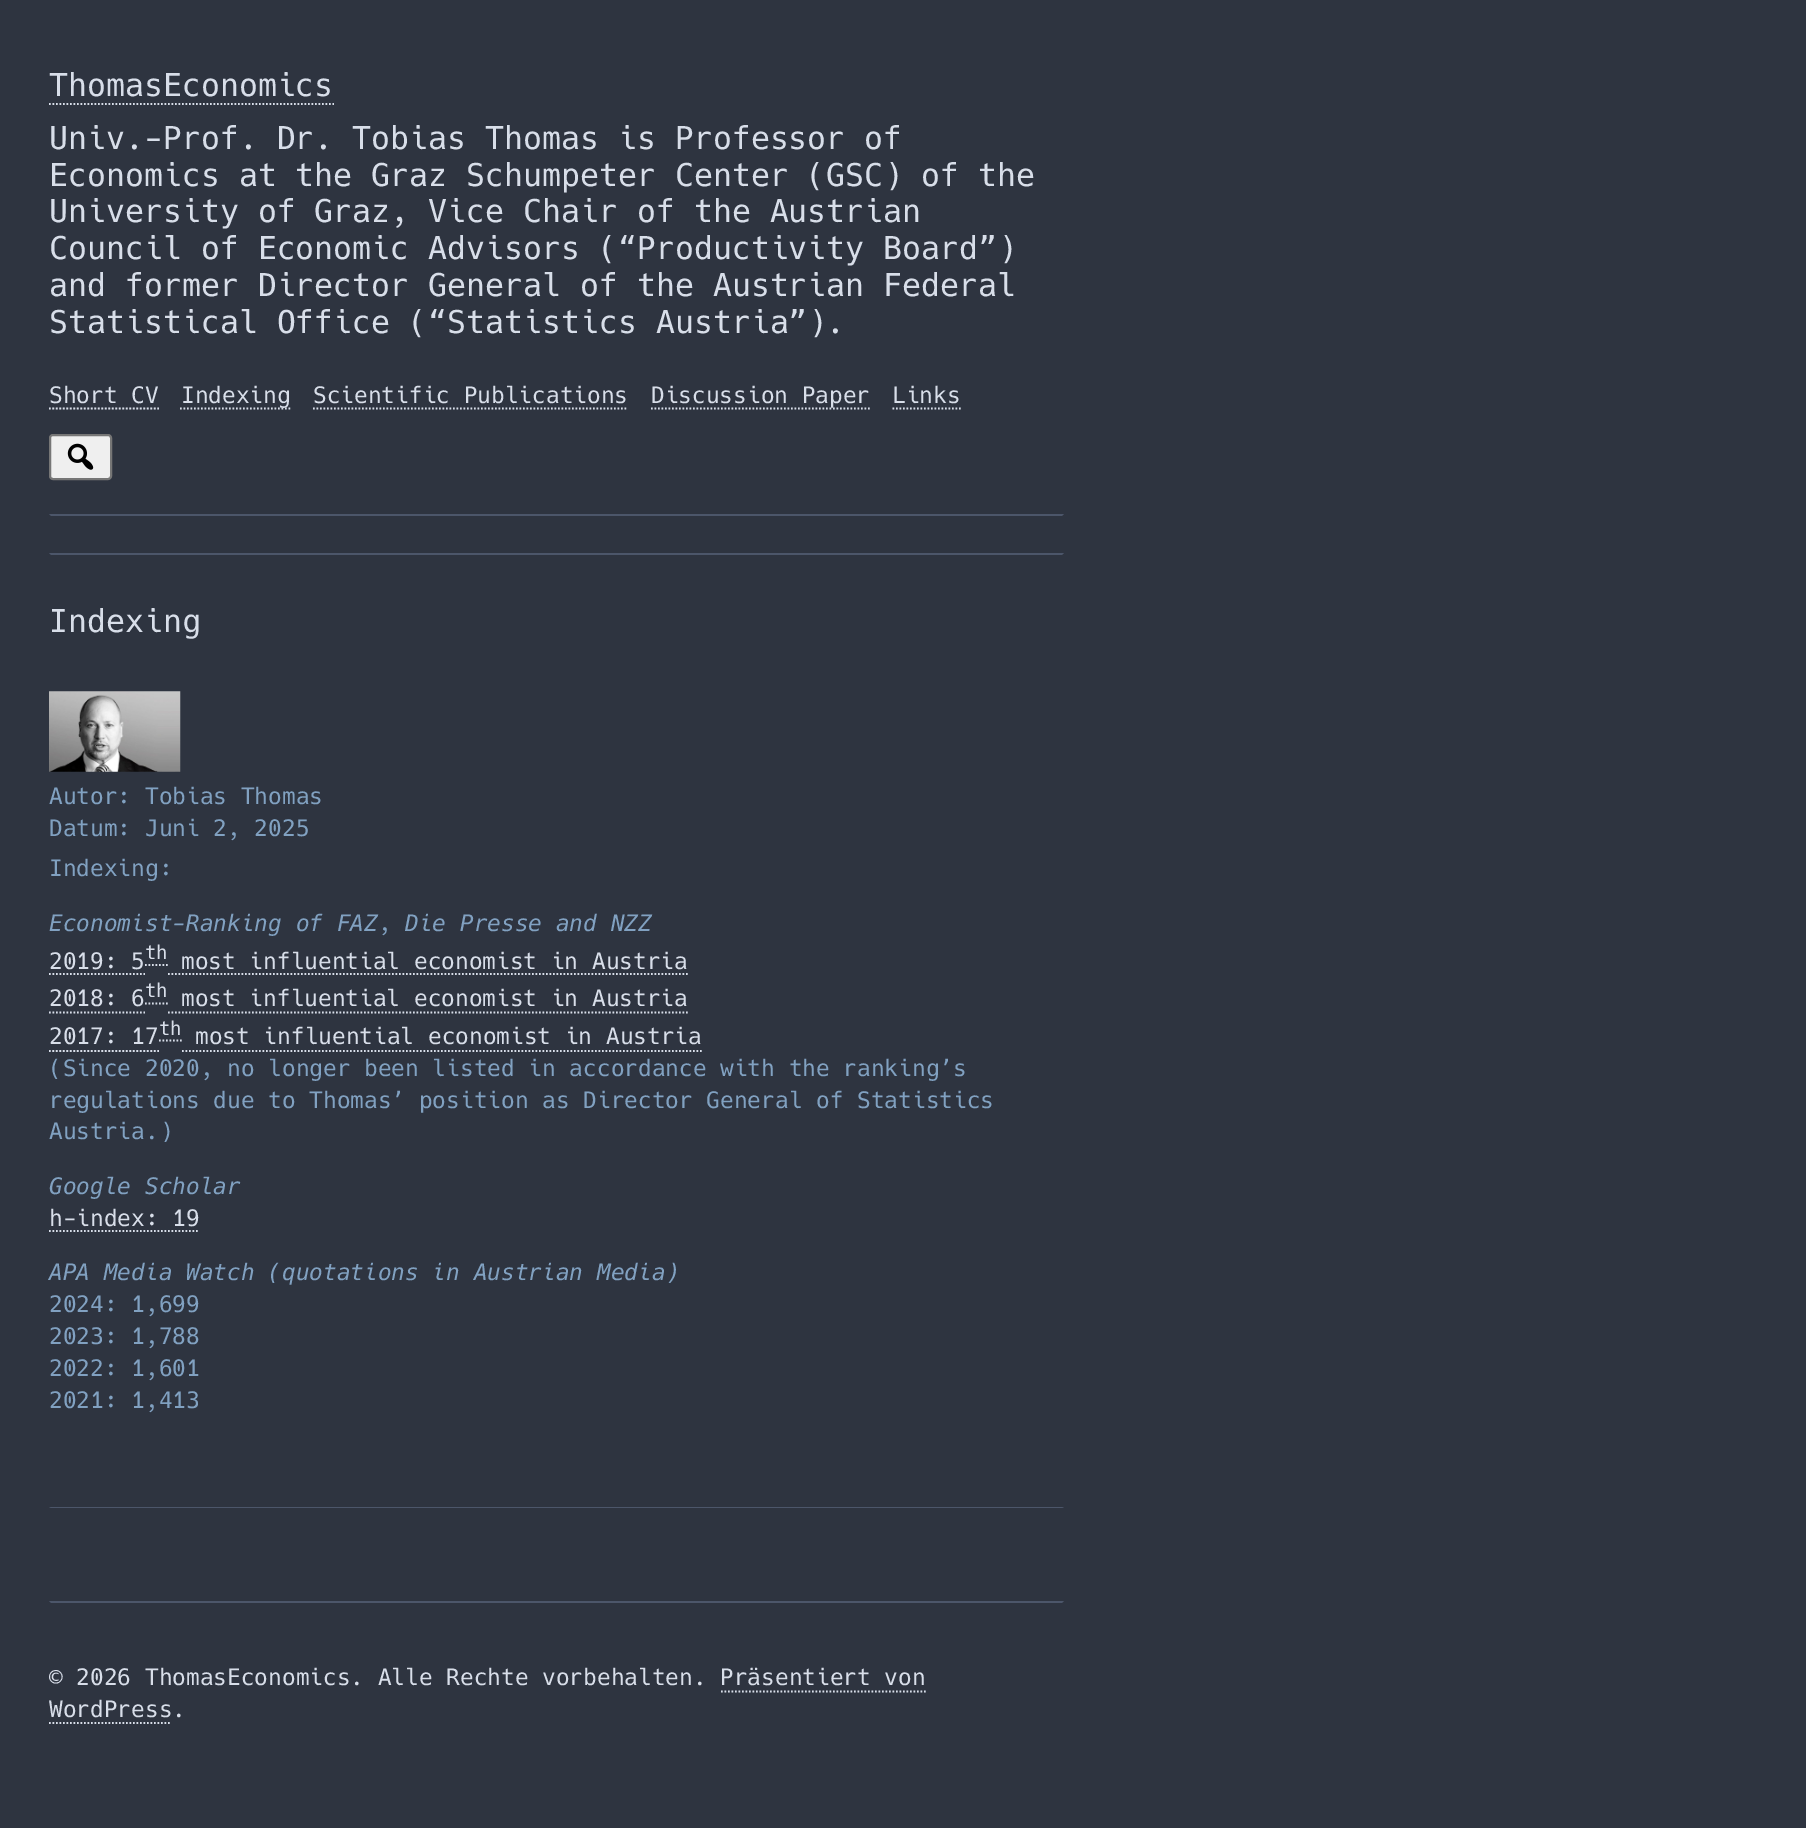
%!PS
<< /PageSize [1806 1828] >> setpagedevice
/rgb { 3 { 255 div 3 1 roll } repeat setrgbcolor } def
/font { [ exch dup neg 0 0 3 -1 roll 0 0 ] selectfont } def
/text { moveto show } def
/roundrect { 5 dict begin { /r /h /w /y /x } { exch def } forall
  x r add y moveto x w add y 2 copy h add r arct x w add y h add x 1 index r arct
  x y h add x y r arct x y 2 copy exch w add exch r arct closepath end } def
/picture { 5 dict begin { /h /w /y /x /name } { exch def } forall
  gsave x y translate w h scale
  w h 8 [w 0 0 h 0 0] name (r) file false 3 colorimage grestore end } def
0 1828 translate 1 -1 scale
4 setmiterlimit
46 52 64 rgb
0 0 1806 1828 rectfill
216 222 233 rgb
1.8 setlinewidth
[1.75 1.75] 0 setdash
49 104 moveto 285 0 rlineto stroke
49 408.5 moveto 110 0 rlineto stroke
180 408.5 moveto 110.5 0 rlineto stroke
313 408.5 moveto 315 0 rlineto stroke
651 408.5 moveto 219 0 rlineto stroke
892.5 408.5 moveto 68.5 0 rlineto stroke
239 239 239 rgb
50 435 61 44 3 roundrect gsave fill grestore
118 118 118 rgb
2 setlinewidth
[] 0 setdash
stroke
(img_01.rgb) 67 443 27 27 picture
76 86 106 rgb
49 514 moveto 1015 0 rlineto -2 2 rlineto -1011 0 rlineto closepath fill
49 553 moveto 1015 0 rlineto -2 2 rlineto -1011 0 rlineto closepath fill
(img_02.rgb) 49 691 132 81 picture
216 222 233 rgb
1.8 setlinewidth
[1.75 1.75] 0 setdash
49 974 moveto 96 0 rlineto stroke
145 965 moveto 23 0 rlineto stroke
168 974 moveto 520 0 rlineto stroke
49 1012.5 moveto 96 0 rlineto stroke
145 1003.5 moveto 23 0 rlineto stroke
168 1012.5 moveto 520 0 rlineto stroke
49 1051 moveto 110 0 rlineto stroke
159 1040.5 moveto 23 0 rlineto stroke
182 1051 moveto 520 0 rlineto stroke
49 1231 moveto 150.5 0 rlineto stroke
76 86 106 rgb
49 1507 moveto 1015 0 rlineto -2 1 rlineto -1011 0 rlineto closepath fill
49 1601 moveto 1015 0 rlineto -2 2 rlineto -1011 0 rlineto closepath fill
216 222 233 rgb
721 1691.5 moveto 205 0 rlineto stroke
49 1723 moveto 122.5 0 rlineto stroke
/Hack-Regular 31.5 font
(ThomasEconomics) 49 96 text
(Univ.-Prof. Dr. Tobias Thomas is Professor of) 49 149 text
(Economics at the Graz Schumpeter Center \(GSC\) of the) 49 186 text
(University of Graz, Vice Chair of the Austrian) 49 222 text
(Council of Economic Advisors \(“Productivity Board”\)) 49 259 text
(and former Director General of the Austrian Federal) 49 296 text
(Statistical Office \(“Statistics Austria”\).) 49 333 text
/Hack-Regular 22.75 font
(Short CV) 49 403 text
(Indexing) 181 403 text
(Scientific Publications) 313 403 text
(Discussion Paper) 651 403 text
(Links) 892 403 text
/Hack-Regular 31.5 font
(Indexing) 49 632 text
/Hack-Regular 22.75 font
129 161 193 rgb
(Autor: Tobias Thomas) 49 804 text
(Datum: Juni 2, 2025) 49 836 text
(Indexing:) 49 876 text
/Hack-Italic 22.75 font
(Economist-Ranking of FAZ, Die Presse and NZZ) 49 931 text
/Hack-Regular 22.75 font
216 222 233 rgb
(2019: 5) 49 969 text
/Hack-Regular 19 font
(th) 145 959 text
/Hack-Regular 22.75 font
(most influential economist in Austria) 181 969 text
(2018: 6) 49 1006 text
/Hack-Regular 19 font
(th) 145 997 text
/Hack-Regular 22.75 font
(most influential economist in Austria) 181 1006 text
(2017: 17) 49 1044 text
/Hack-Regular 19 font
(th) 159 1035 text
/Hack-Regular 22.75 font
(most influential economist in Austria) 195 1044 text
129 161 193 rgb
(\(Since 2020, no longer been listed in accordance with the ranking’s) 49 1076 text
(regulations due to Thomas’ position as Director General of Statistics) 49 1108 text
(Austria.\)) 49 1139 text
/Hack-Italic 22.75 font
(Google Scholar) 49 1194 text
/Hack-Regular 22.75 font
216 222 233 rgb
(h-index: 19) 49 1226 text
/Hack-Italic 22.75 font
129 161 193 rgb
(APA Media Watch \(quotations in Austrian Media\)) 49 1280 text
/Hack-Regular 22.75 font
(2024: 1,699) 49 1312 text
(2023: 1,788) 49 1344 text
(2022: 1,601) 49 1376 text
(2021: 1,413) 49 1408 text
216 222 233 rgb
(© 2026 ThomasEconomics. Alle Rechte vorbehalten. Präsentiert von) 49 1685 text
(WordPress.) 49 1717 text
showpage
